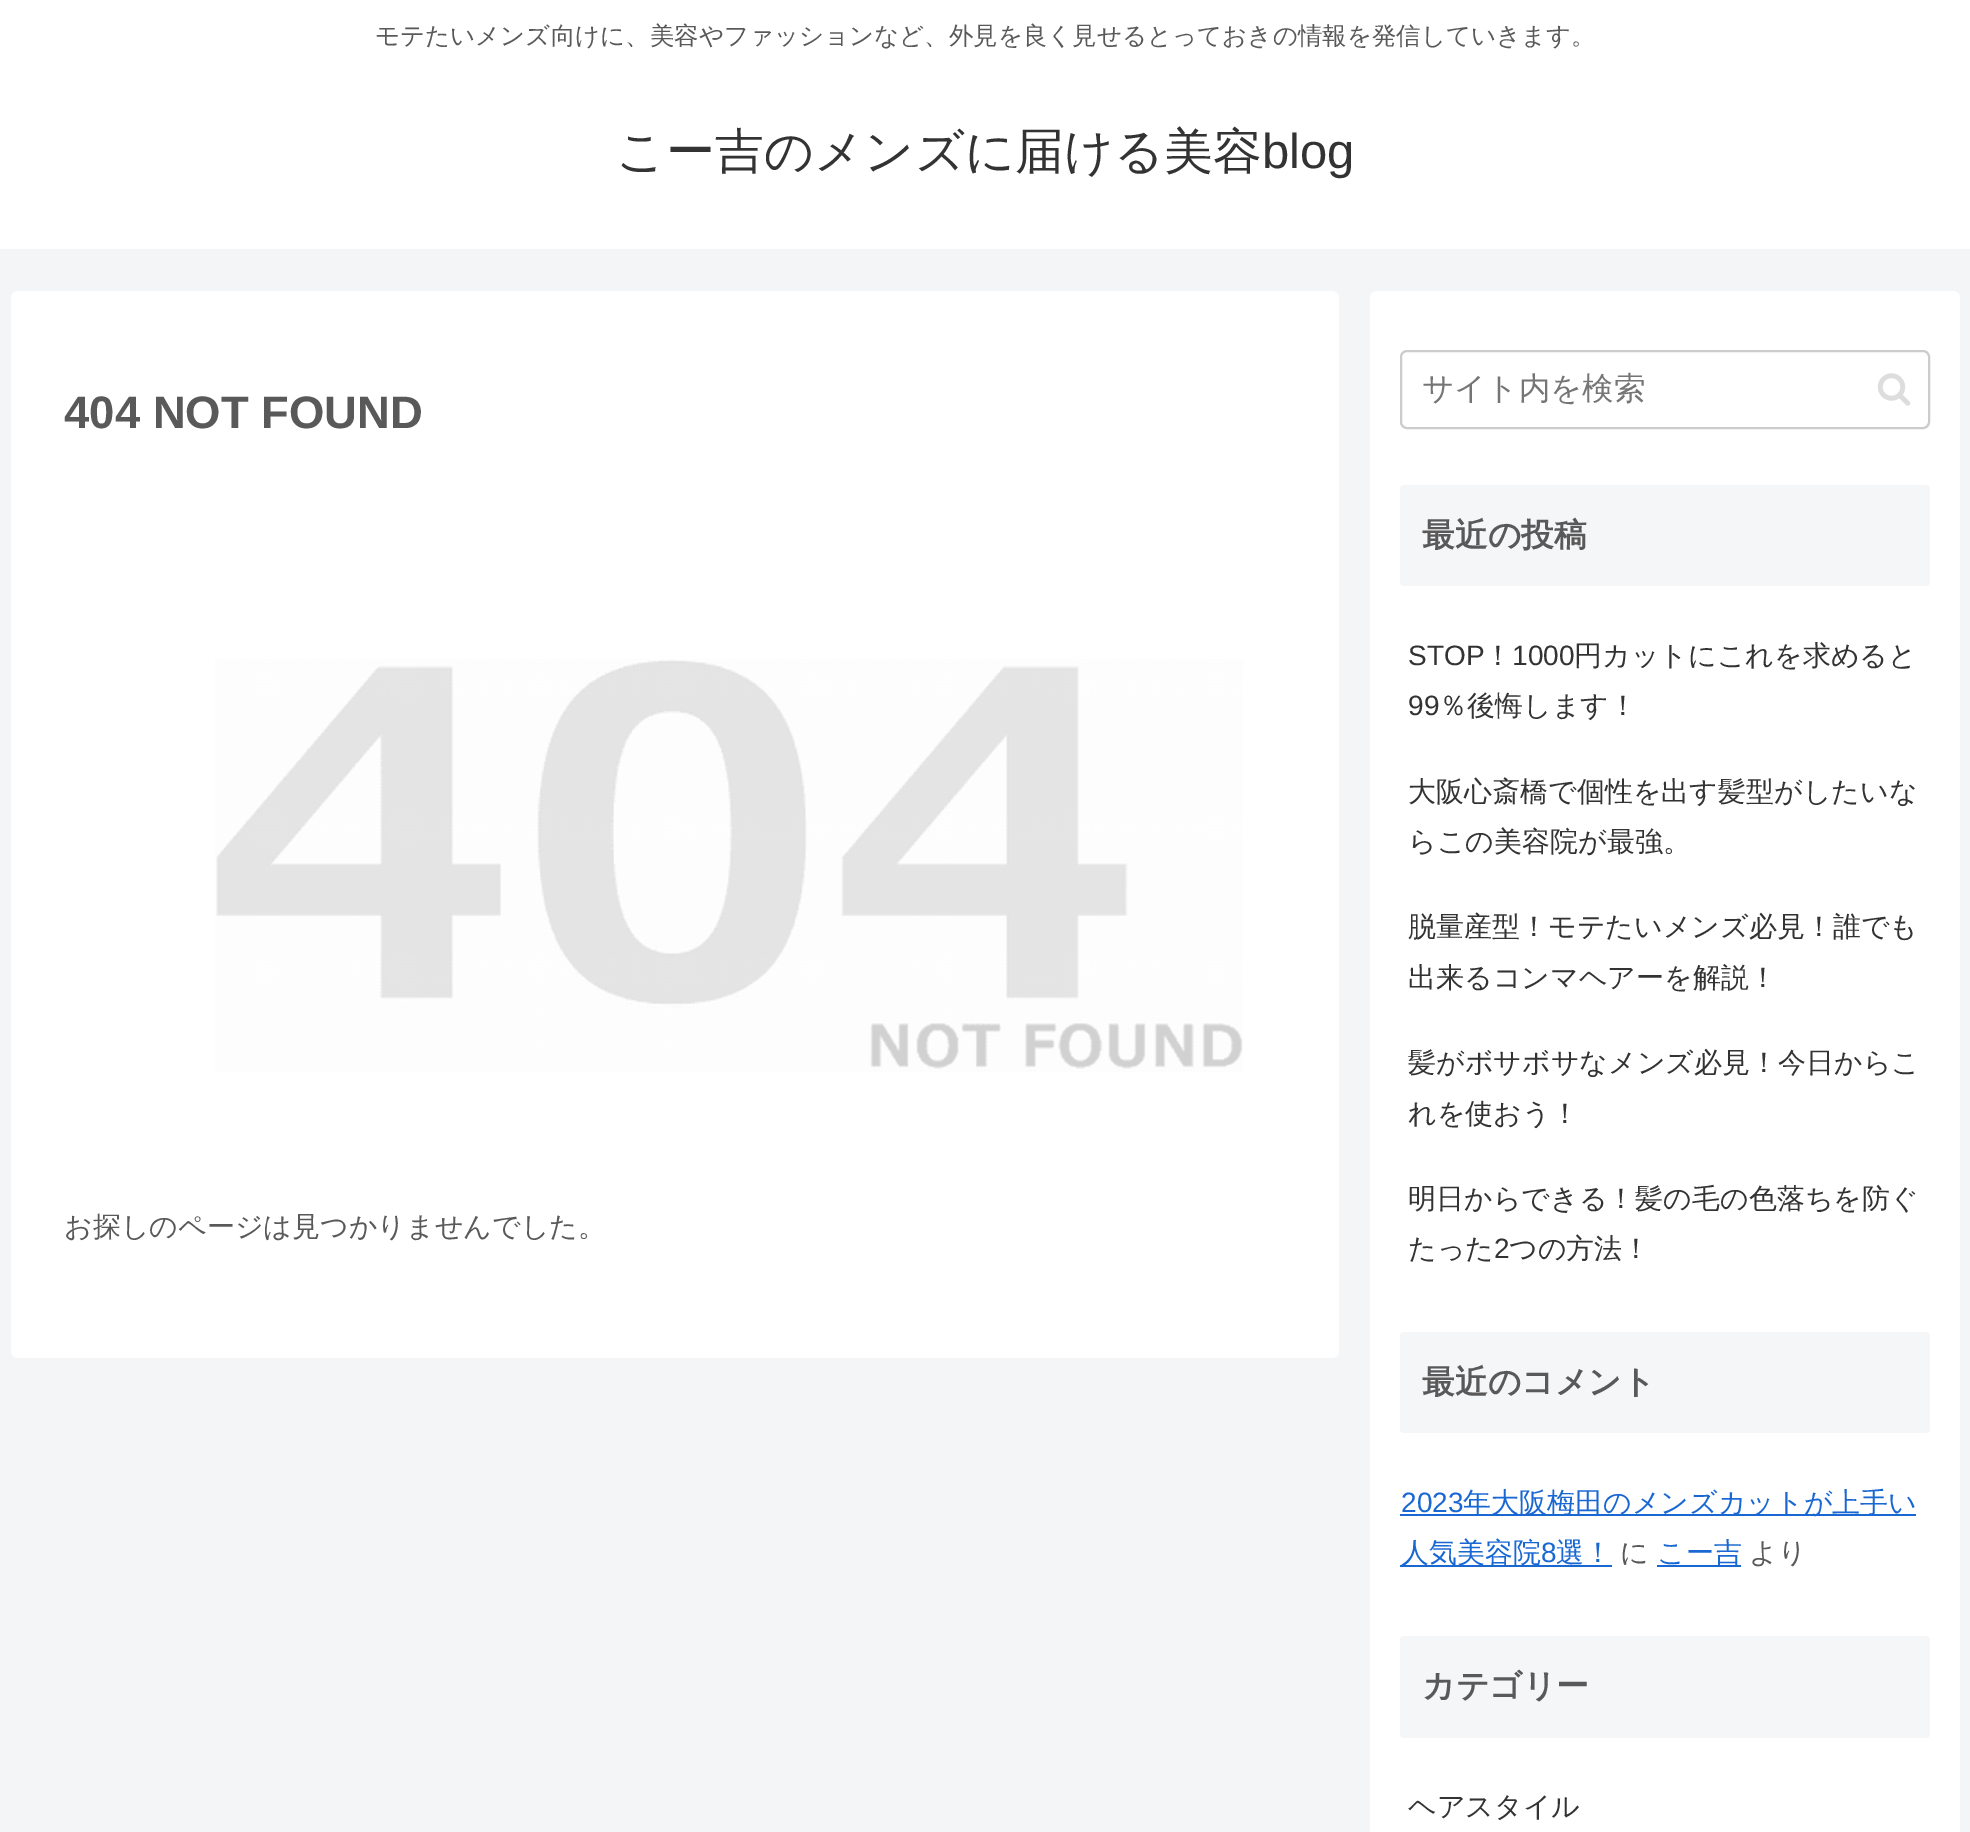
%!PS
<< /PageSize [1970 1832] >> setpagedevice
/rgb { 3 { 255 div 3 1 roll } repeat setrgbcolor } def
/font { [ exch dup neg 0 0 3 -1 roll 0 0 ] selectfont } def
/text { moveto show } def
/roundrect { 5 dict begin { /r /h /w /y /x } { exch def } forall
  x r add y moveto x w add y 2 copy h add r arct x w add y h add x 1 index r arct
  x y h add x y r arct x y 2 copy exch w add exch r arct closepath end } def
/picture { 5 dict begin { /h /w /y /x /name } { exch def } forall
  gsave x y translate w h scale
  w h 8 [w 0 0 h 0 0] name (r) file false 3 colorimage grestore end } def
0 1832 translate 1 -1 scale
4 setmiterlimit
244 245 247 rgb
0 0 1970 1832 rectfill
255 255 255 rgb
0 0 1970 249 rectfill
11 291 1328 1067 7 roundrect fill
(img_01.rgb) 215 659 1028 413 picture
1370 291 590 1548 7 roundrect fill
204 204 204 rgb
2 setlinewidth
1401 351 528 77 6 roundrect stroke
(img_02.rgb) 1877 373 34 33 picture
245 246 247 rgb
1400 485 530 101 4 roundrect fill
1400 1332 530 101 4 roundrect fill
25 103 210 rgb
1400 1514 516 2 rectfill
1400 1565 212 2 rectfill
1657 1565 84 2 rectfill
245 246 247 rgb
1400 1636 530 102 4 roundrect fill
/WenQuanYiZenHei-Medium 24.5 font
89 89 89 rgb
(モテたいメンズ向けに、美容やファッションなど、外見を良く見せるとっておきの情報を発信していきます。) 375 44 text
/WenQuanYiZenHei-Medium 49 font
51 51 51 rgb
(こー吉のメンズに届ける美容) 616 168 text
/LiberationSans-Regular 49 font
(blog) 1262 168 text
/LiberationSans-Bold 45.5 font
89 89 89 rgb
(404 NOT FOUND) 64 428 text
/WenQuanYiZenHei-Medium 28 font
(お探しのページは見つかりませんでした。) 64 1236 text
/WenQuanYiZenHei-Medium 31.5 font
117 117 117 rgb
(サイト内を検索) 1422 399 text
/WenQuanYiZenHei-Bold 32.75 font
89 89 89 rgb
(最近の投稿) 1422 546 text
/LiberationSans-Regular 28 font
51 51 51 rgb
(STOP) 1408 665 text
/WenQuanYiZenHei-Medium 28 font
(！) 1484 665 text
/LiberationSans-Regular 28 font
(1000) 1512 665 text
/WenQuanYiZenHei-Medium 28 font
(円カットにこれを求めると) 1574 665 text
/LiberationSans-Regular 28 font
(99) 1408 715 text
/WenQuanYiZenHei-Medium 28 font
(％後悔します！) 1439 715 text
(大阪心斎橋で個性を出す髪型がしたいな) 1408 801 text
(らこの美容院が最強。) 1408 851 text
(脱量産型！モテたいメンズ必見！誰でも) 1408 936 text
(出来るコンマヘアーを解説！) 1408 987 text
(髪がボサボサなメンズ必見！今日からこ) 1408 1072 text
(れを使おう！) 1408 1123 text
(明日からできる！髪の毛の色落ちを防ぐ) 1408 1208 text
(たった) 1408 1258 text
/LiberationSans-Regular 28 font
(2) 1494 1258 text
/WenQuanYiZenHei-Medium 28 font
(つの方法！) 1509 1258 text
/WenQuanYiZenHei-Bold 32.75 font
89 89 89 rgb
(最近のコメント) 1422 1393 text
/LiberationSans-Regular 28 font
25 103 210 rgb
(2023) 1401 1512 text
/WenQuanYiZenHei-Medium 28 font
(年大阪梅田のメンズカットが上手い) 1463 1512 text
(人気美容院) 1401 1562 text
/LiberationSans-Regular 28 font
(8) 1541 1562 text
/WenQuanYiZenHei-Medium 28 font
(選！) 1556 1562 text
89 89 89 rgb
(に) 1620 1562 text
25 103 210 rgb
(こー吉) 1657 1562 text
89 89 89 rgb
(より) 1749 1562 text
/WenQuanYiZenHei-Bold 32.75 font
(カテゴリー) 1422 1697 text
/WenQuanYiZenHei-Medium 28 font
51 51 51 rgb
(ヘアスタイル) 1408 1816 text
showpage
